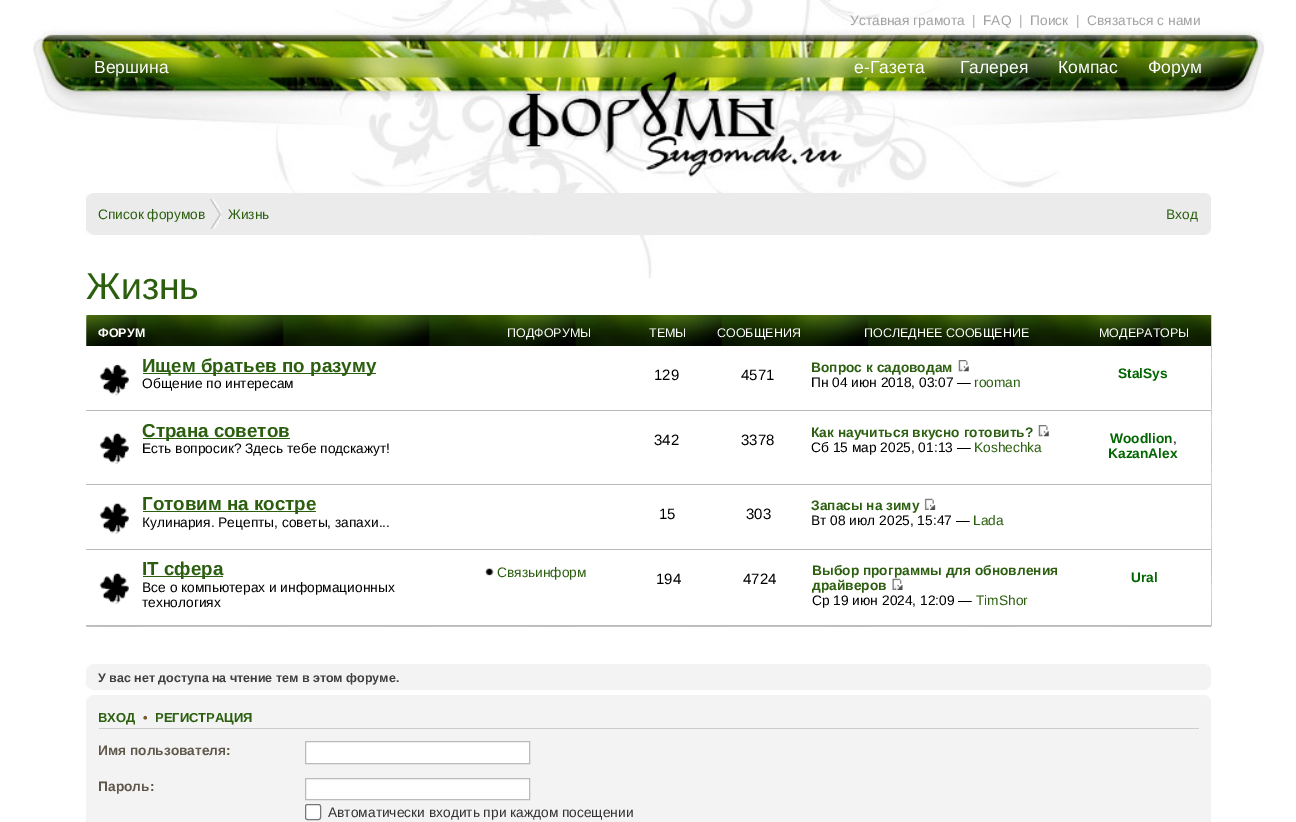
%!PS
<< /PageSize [1296 822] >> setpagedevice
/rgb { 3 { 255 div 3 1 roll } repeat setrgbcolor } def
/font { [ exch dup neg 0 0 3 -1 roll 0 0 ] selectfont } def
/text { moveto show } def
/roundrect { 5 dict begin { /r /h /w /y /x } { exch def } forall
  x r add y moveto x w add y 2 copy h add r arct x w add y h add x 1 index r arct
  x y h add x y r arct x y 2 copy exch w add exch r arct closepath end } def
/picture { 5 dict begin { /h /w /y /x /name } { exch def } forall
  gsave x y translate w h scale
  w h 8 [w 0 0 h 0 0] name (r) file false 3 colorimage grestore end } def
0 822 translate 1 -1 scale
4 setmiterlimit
255 255 255 rgb
0 0 1296 822 rectfill
(img_01.rgb) 32 0 1233 279 picture
235 235 235 rgb
86 193 1125 42 rectfill
(img_02.rgb) 86 193 7 5 picture
(img_03.rgb) 1206 193 5 5 picture
(img_04.rgb) 210 199 12 30 picture
(img_05.rgb) 86 230 7 5 picture
(img_06.rgb) 1205 229 6 6 picture
(img_07.rgb) 86 315 1126 312 picture
(img_08.rgb) 86 315 2 2 picture
(img_09.rgb) 1210 315 2 1 picture
255 255 255 rgb
86 346 1125 279 rectfill
187 187 187 rgb
86 410 1125 1 rectfill
(img_10.rgb) 99 364 30 32 picture
43 95 15 rgb
143 373 233 1 rectfill
(img_11.rgb) 958 360 11 12 picture
187 187 187 rgb
86 484 1125 1 rectfill
(img_12.rgb) 99 433 30 31 picture
43 95 15 rgb
143 438 147 1 rectfill
(img_11.rgb) 1038 425 11 12 picture
187 187 187 rgb
86 549 1125 1 rectfill
(img_12.rgb) 99 503 30 31 picture
43 95 15 rgb
143 511 173 1 rectfill
(img_13.rgb) 924 498 12 12 picture
187 187 187 rgb
86 625 1125 1 rectfill
(img_14.rgb) 99 573 30 31 picture
43 95 15 rgb
143 576 80 1 rectfill
(img_15.rgb) 485 568 9 8 picture
(img_16.rgb) 892 578 11 12 picture
243 243 243 rgb
86 664 1125 26 rectfill
(img_17.rgb) 86 664 6 5 picture
(img_18.rgb) 1206 664 5 5 picture
(img_19.rgb) 86 685 6 5 picture
(img_20.rgb) 1206 685 5 5 picture
86 695 1125 127 rectfill
(img_21.rgb) 86 695 6 5 picture
(img_22.rgb) 1206 695 5 5 picture
204 204 204 rgb
99 728 1100 1 rectfill
255 255 255 rgb
305.5 741.5 moveto 224 0 rlineto 0 22 rlineto -224 0 rlineto closepath gsave fill grestore
189 186 183 rgb
stroke
255 255 255 rgb
305.5 778.5 moveto 224 0 rlineto 0 21 rlineto -224 0 rlineto closepath gsave fill grestore
189 186 183 rgb
stroke
255 255 255 rgb
305.5 804.5 15 15 2 roundrect gsave fill grestore
118 118 118 rgb
stroke
/LiberationSans-Regular 13.75 font
163 162 162 rgb
(Уставная грамота) 850 25 text
(|) 972 25 text
(FAQ) 983 25 text
(|) 1019 25 text
(Поиск) 1030 25 text
(|) 1076 25 text
(Связаться с нами) 1087 25 text
/LiberationSans-Regular 17.5 font
255 255 255 rgb
(Вершина) 94 73 text
(е-Газета) 854 73 text
(Галерея) 960 73 text
(Компас) 1058 73 text
(Форум) 1148 73 text
/LiberationSans-Regular 13.75 font
43 95 15 rgb
(Список форумов) 98 219 text
(Жизнь) 228 219 text
(Вход) 1166 219 text
/LiberationSans-Regular 37.5 font
(Жизнь) 86 299 text
/LiberationSans-Bold 12.5 font
255 255 255 rgb
(ФОРУМ) 98 337 text
/LiberationSans-Regular 12.5 font
(ПОДФОРУМЫ) 507 337 text
(ТЕМЫ) 649 337 text
(СООБЩЕНИЯ) 717 337 text
(ПОСЛЕДНЕЕ СООБЩЕНИЕ) 864 337 text
(МОДЕРАТОРЫ) 1099 337 text
/LiberationSans-Bold 18.75 font
43 95 15 rgb
(Ищем братьев по разуму) 142 372 text
/LiberationSans-Regular 13.75 font
0 0 0 rgb
(Общение по интересам) 142 388 text
/LiberationSans-Regular 15 font
(129) 654 380 text
(4571) 741 380 text
/LiberationSans-Bold 13.75 font
43 95 15 rgb
(Вопрос к садоводам) 811 372 text
/LiberationSans-Regular 13.75 font
0 0 0 rgb
(Пн 04 июн 2018, 03:07 —) 811 387 text
43 95 15 rgb
(rooman) 974 387 text
/LiberationSans-Bold 13.75 font
0 102 0 rgb
(StalSys) 1118 378 text
/LiberationSans-Bold 18.75 font
43 95 15 rgb
(Страна советов) 142 437 text
/LiberationSans-Regular 13.75 font
0 0 0 rgb
(Есть вопросик? Здесь тебе подскажут!) 142 453 text
/LiberationSans-Regular 15 font
(342) 654 445 text
(3378) 741 445 text
/LiberationSans-Bold 13.75 font
43 95 15 rgb
(Как научиться вкусно готовить?) 811 437 text
/LiberationSans-Regular 13.75 font
0 0 0 rgb
(Сб 15 мар 2025, 01:13 —) 811 452 text
43 95 15 rgb
(Koshechka) 974 452 text
/LiberationSans-Bold 13.75 font
0 102 0 rgb
(Woodlion) 1110 443 text
/LiberationSans-Regular 13.75 font
0 0 0 rgb
(,) 1173 443 text
/LiberationSans-Bold 13.75 font
0 102 0 rgb
(KazanAlex) 1108 458 text
/LiberationSans-Bold 18.75 font
43 95 15 rgb
(Готовим на костре) 142 510 text
/LiberationSans-Regular 13.75 font
0 0 0 rgb
(Кулинария. Рецепты, советы, запахи...) 142 527 text
/LiberationSans-Regular 15 font
(15) 659 519 text
(303) 746 519 text
/LiberationSans-Bold 13.75 font
43 95 15 rgb
(Запасы на зиму) 811 510 text
/LiberationSans-Regular 13.75 font
0 0 0 rgb
(Вт 08 июл 2025, 15:47 —) 811 525 text
43 95 15 rgb
(Lada) 973 525 text
/LiberationSans-Bold 18.75 font
(IT сфера) 142 575 text
/LiberationSans-Regular 13.75 font
0 0 0 rgb
(Все о компьютерах и информационных) 142 592 text
(технологиях) 142 607 text
43 95 15 rgb
(Связьинформ) 497 577 text
/LiberationSans-Regular 15 font
0 0 0 rgb
(194) 656 584 text
(4724) 743 584 text
/LiberationSans-Bold 13.75 font
43 95 15 rgb
(Выбор программы для обновления) 812 575 text
(драйверов) 812 590 text
/LiberationSans-Regular 13.75 font
0 0 0 rgb
(Ср 19 июн 2024, 12:09 —) 812 605 text
43 95 15 rgb
(TimShor) 976 605 text
/LiberationSans-Bold 13.75 font
0 102 0 rgb
(Ural) 1131 582 text
/LiberationSans-Bold 12.5 font
63 63 63 rgb
(У вас нет доступа на чтение тем в этом форуме.) 98 682 text
/LiberationSans-Bold 13 font
43 95 15 rgb
(ВХОД) 98 722 text
124 87 45 rgb
(•) 143 722 text
43 95 15 rgb
(РЕГИСТРАЦИЯ) 155 722 text
/LiberationSans-Bold 13.75 font
95 87 74 rgb
(Имя пользователя:) 98 755 text
(Пароль:) 98 791 text
/LiberationSans-Regular 13.75 font
51 51 51 rgb
(Автоматически входить при каждом посещении) 328 817 text
showpage
